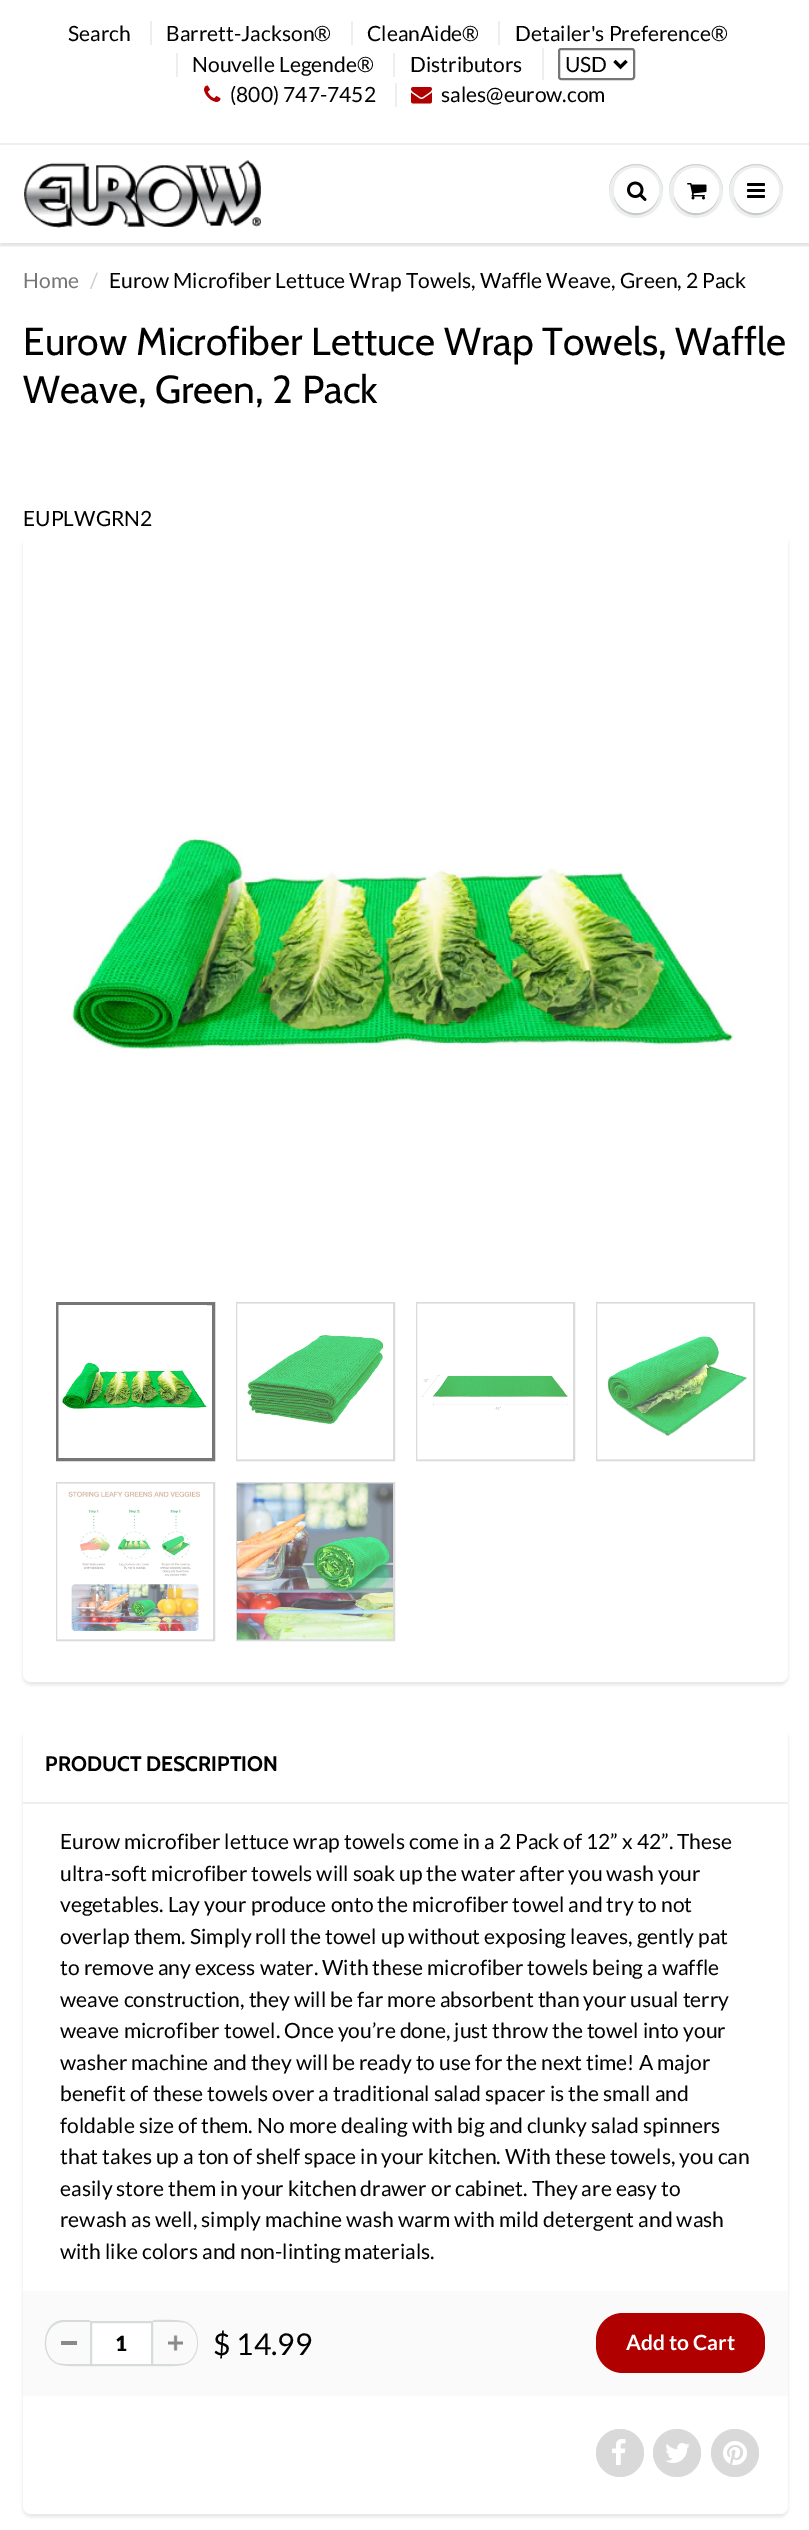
%!PS
<< /PageSize [809 2530] /PageUsesTransparency true >> setpagedevice
/rgb { 3 { 255 div 3 1 roll } repeat setrgbcolor } def
/font { [ exch dup neg 0 0 3 -1 roll 0 0 ] selectfont } def
/text { moveto show } def
/alpha { dup .setfillconstantalpha .setstrokeconstantalpha } def
/circle { newpath 0 360 arc closepath } def
/roundrect { 5 dict begin { /r /h /w /y /x } { exch def } forall
  x r add y moveto x w add y 2 copy h add r arct x w add y h add x 1 index r arct
  x y h add x y r arct x y 2 copy exch w add exch r arct closepath end } def
/shadow { 12 dict begin { /a /b /q /h /w /y /x } { exch def } forall gsave /was 0 def
  9 -2 -9 { dup b mul 4 div /e exch def 1 sub .425 mul 2.718 exch exp 1 add a .99 .min exch div /now exch def
    1 1 now sub 1 was sub div sub alpha /was now def
    w h .min e 2 mul add 0 gt { x e sub y e sub w e 2 mul add h e 2 mul add
      q e add b .6 mul add w h .min 2 div e add .min 0 .max roundrect fill } if } for grestore end } def
/picture { 5 dict begin { /h /w /y /x /name } { exch def } forall
  gsave x y translate w h scale
  w h 8 [w 0 0 h 0 0] name (r) file false 3 colorimage grestore end } def
0 .pushpdf14devicefilter
0 2530 translate 1 -1 scale
4 setmiterlimit
255 255 255 rgb
0 0 809 2530 rectfill
236 239 239 rgb
150 21 2 24 rectfill
351 21 2 24 rectfill
498 21 2 24 rectfill
176 53 2 24 rectfill
393 53 2 24 rectfill
542 48 2 32 rectfill
118 118 118 rgb
2 setlinewidth
559 49 75 30 2 roundrect stroke
0 0 0 rgb
3 setlinewidth
614.5 61 moveto 6 6 rlineto 6 -6 rlineto stroke
(img_01.rgb) 204 85 17 17 picture
236 239 239 rgb
395 83 2 24 rectfill
(img_02.rgb) 411 87 21 17 picture
gsave
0 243 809 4 rectclip
11 25 28 rgb
0 146 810 100 0 1.5 0.12 shadow
grestore
0 143 809 2 rectfill
(img_03.rgb) 24 160 237 68 picture
237 239 239 rgb
636 191 27 circle fill
201 203 203 rgb
636 165 moveto 15 0 27 12 27 26 rcurveto 0 -5 -2 -11 -5 -15 rcurveto -15 -22 -49 -11 -49 15 rcurveto 0 -14 12 -26 27 -26 rcurveto closepath fill
614 197 moveto 1 5 4 10 8 13 rcurveto 17 14 42 -3 36 -24 rcurveto 6 28 -35 38 -44 11 rcurveto closepath fill
255 255 255 rgb
636.5 190.5 22.5 circle fill
636 170 moveto 17 0 24 15 22 27 rcurveto 8 -28 -33 -41 -43 -14 rcurveto 3 -7 10 -13 21 -13 rcurveto closepath fill
(img_04.rgb) 627 181 20 20 picture
237 239 239 rgb
696 191 27 circle fill
201 203 203 rgb
696 165 moveto 15 0 27 12 27 26 rcurveto 0 -5 -2 -11 -5 -15 rcurveto -15 -22 -49 -11 -49 15 rcurveto 0 -14 12 -26 27 -26 rcurveto closepath fill
674 197 moveto 1 5 4 10 8 13 rcurveto 17 14 42 -3 36 -24 rcurveto 6 28 -35 38 -44 11 rcurveto closepath fill
255 255 255 rgb
696.5 190.5 22.5 circle fill
696 170 moveto 17 0 24 15 22 27 rcurveto 8 -28 -33 -41 -43 -14 rcurveto 3 -7 10 -13 21 -13 rcurveto closepath fill
(img_05.rgb) 687 183 20 17 picture
237 239 239 rgb
756 191 27 circle fill
201 203 203 rgb
756 165 moveto 15 0 27 12 27 26 rcurveto 0 -5 -2 -11 -5 -15 rcurveto -15 -22 -49 -11 -49 15 rcurveto 0 -14 12 -26 27 -26 rcurveto closepath fill
734 197 moveto 1 5 4 10 8 13 rcurveto 17 14 42 -3 36 -24 rcurveto 6 28 -35 38 -44 11 rcurveto closepath fill
255 255 255 rgb
756.5 190.5 22.5 circle fill
756 170 moveto 17 0 24 15 22 27 rcurveto 8 -28 -33 -41 -43 -14 rcurveto 3 -7 10 -13 21 -13 rcurveto closepath fill
(img_06.rgb) 747 183 18 15 picture
11 25 28 rgb
23 537 765 1148 8 1.5 0.1 shadow
255 255 255 rgb
23 534 765 1148 8 roundrect fill
(img_07.rgb) 71 836 665 214 picture
118 118 118 rgb
57.5 1303.5 156 156 rectstroke
(img_08.rgb) 58 1305 149 153 picture
219 219 219 rgb
2 setlinewidth
237 1303 157 157 rectstroke
(img_09.rgb) 237 1303 156 157 picture
417 1303 157 157 rectstroke
(img_10.rgb) 417 1303 156 157 picture
597 1303 157 157 rectstroke
(img_11.rgb) 597 1303 156 157 picture
57 1483 157 157 rectstroke
(img_12.rgb) 57 1483 156 157 picture
237 1483 157 157 rectstroke
(img_13.rgb) 237 1483 156 157 picture
11 25 28 rgb
23 1730 765 787 8 1.5 0.1 shadow
255 255 255 rgb
23 1727 765 787 8 roundrect fill
239 239 239 rgb
23 1802 765 2 rectfill
250 250 250 rgb
23 2291 765 105 rectfill
137 137 137 rgb
61 2341 16 4 rectfill
215 219 219 rgb
64 2320 moveto 26 0 rlineto 0 46 rlineto -8 0 -26 1 -33 -2 rcurveto -19 -8 -15 -44 7 -44 rcurveto closepath 64 2322 moveto 26 0 rlineto 0 42 rlineto -8 0 -26 1 -33 -1 rcurveto -17 -8 -14 -41 7 -41 rcurveto closepath eofill
255 255 255 rgb
91 2322 moveto 61 0 rlineto 0 43 rlineto -61 0 rlineto closepath gsave fill grestore
215 219 219 rgb
stroke
(img_14.rgb) 168 2335 15 16 picture
153 2320 moveto 8 0 26 -1 33 2 rcurveto 16 7 16 35 0 42 rcurveto -7 3 -25 2 -33 2 rcurveto closepath 153 2322 moveto 8 0 26 -1 33 1 rcurveto 15 7 15 33 0 40 rcurveto -7 2 -25 1 -33 1 rcurveto closepath eofill
176 0 0 rgb
596 2313 169 60 27 roundrect fill
217 217 217 rgb
620 2453 24 circle fill
(img_15.rgb) 612 2439 14 26 picture
677 2453 24 circle fill
(img_16.rgb) 665 2443 25 20 picture
735 2453 24 circle fill
(img_17.rgb) 723 2441 24 24 picture
/Lato-Regular 21 font
0 0 0 rgb
(Search) 68 41 text
(Barrett-Jackson®) 166 41 text
(CleanAide®) 367 41 text
(Detailer's Preference®) 515 41 text
(Nouvelle Legende®) 192 72 text
(Distributors) 410 72 text
(USD) 565 72 text
(\(800\) 747-7452) 230 102 text
(sales@eurow.com) 441 102 text
118 118 118 rgb
(Home) 23 288 text
204 204 204 rgb
(/) 90 288 text
0 0 0 rgb
(Eurow Microfiber Lettuce Wrap Towels, Waffle Weave, Green, 2 Pack) 109 288 text
/Cabin-Regular 39 font
(Eurow Microfiber Lettuce Wrap Towels, Waffle) 23 355 text
(Weave, Green, 2 Pack) 23 403 text
/Lato-Regular 21 font
(EUPLWGRN2) 23 526 text
/Cabin-Bold 21 font
(PRODUCT DESCRIPTION) 45 1771 text
/Lato-Regular 21 font
(Eurow microfiber lettuce wrap towels come in a 2 Pack of 12” x 42”. These) 60 1849 text
(ultra-soft microfiber towels will soak up the water after you wash your) 60 1881 text
(vegetables. Lay your produce onto the microfiber towel and try to not) 60 1912 text
(overlap them. Simply roll the towel up without exposing leaves, gently pat) 60 1944 text
(to remove any excess water. With these microfiber towels being a waffle) 60 1975 text
(weave construction, they will be far more absorbent than your usual terry) 60 2007 text
(weave microfiber towel. Once you’re done, just throw the towel into your) 60 2038 text
(washer machine and they will be ready to use for the next time! A major) 60 2070 text
(benefit of these towels over a traditional salad spacer is the small and) 60 2101 text
(foldable size of them. No more dealing with big and clunky salad spinners) 60 2133 text
(that takes up a ton of shelf space in your kitchen. With these towels, you can) 60 2164 text
(easily store them in your kitchen drawer or cabinet. They are easy to) 60 2196 text
(rewash as well, simply machine wash warm with mild detergent and wash) 60 2227 text
(with like colors and non-linting materials.) 60 2259 text
/Lato-Black 21 font
(1) 115 2351 text
/Lato-Regular 30 font
($ 14.99) 213 2355 text
/Lato-Bold 21 font
255 255 255 rgb
(Add to Cart) 626 2350 text
.poppdf14devicefilter showpage
